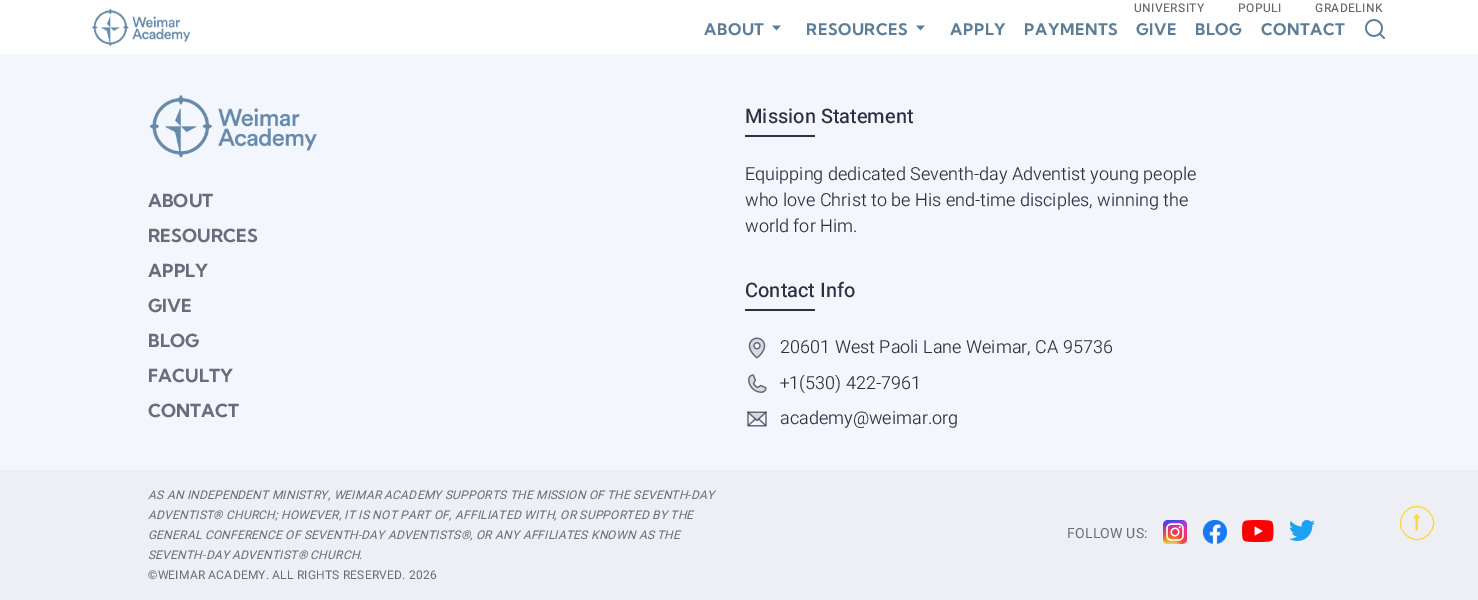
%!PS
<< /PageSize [1478 600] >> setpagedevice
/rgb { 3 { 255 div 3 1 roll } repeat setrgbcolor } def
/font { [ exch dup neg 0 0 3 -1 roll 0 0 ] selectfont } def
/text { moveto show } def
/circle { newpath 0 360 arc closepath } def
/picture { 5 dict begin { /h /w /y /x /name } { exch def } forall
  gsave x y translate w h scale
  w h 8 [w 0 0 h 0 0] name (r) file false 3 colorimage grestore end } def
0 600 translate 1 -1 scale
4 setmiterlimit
243 246 252 rgb
0 0 1478 600 rectfill
255 255 255 rgb
0 0 1478 54 rectfill
(img_01.rgb) 91 8 100 39 picture
(img_02.rgb) 772 25 9 6 picture
(img_02.rgb) 916 25 9 6 picture
(img_03.rgb) 1365 19 20 20 picture
(img_04.rgb) 149 94 168 64 picture
47 47 67 rgb
745 135 70 2 rectfill
745 309 70 2 rectfill
(img_05.rgb) 748 337 18 22 picture
(img_06.rgb) 748 374 19 19 picture
(img_07.rgb) 747 411 20 16 picture
237 239 244 rgb
0 470 1478 130 rectfill
(img_08.rgb) 1163 520 24 24 picture
(img_09.rgb) 1202 520 25 24 picture
(img_10.rgb) 1242 520 32 22 picture
(img_11.rgb) 1289 520 26 21 picture
255 213 64 rgb
1417 523 16.5 circle stroke
(img_12.rgb) 1413 514 8 17 picture
/Heebo-Medium 12 font
105 105 105 rgb
1134 12 moveto 0.4 0 (UNIVERSITY) ashow
1238 12 moveto 0.4 0 (POPULI) ashow
1315 12 moveto 0.4 0 (GRADELINK) ashow
/KumbhSans-Bold 16 font
93 125 150 rgb
704 35 moveto 0.5 0 (ABOUT) ashow
806 35 moveto 0.5 0 (RESOURCES) ashow
950 35 moveto 0.5 0 (APPLY) ashow
1024 35 moveto 0.5 0 (PAYMENTS) ashow
1136 35 moveto 0.5 0 (GIVE) ashow
1195 35 moveto 0.5 0 (BLOG) ashow
1261 35 moveto 0.5 0 (CONTACT) ashow
/KumbhSans-Bold 18 font
106 107 123 rgb
(ABOUT) 148 207 text
(RESOURCES) 148 242 text
(APPLY) 148 277 text
(GIVE) 148 312 text
(BLOG) 148 347 text
(FACULTY) 148 382 text
(CONTACT) 148 417 text
/Heebo-Medium 20 font
47 47 67 rgb
(Mission Statement) 745 123 text
/Heebo-Light 18 font
(Equipping dedicated Seventh-day Adventist young people) 745 180 text
(who love Christ to be His end-time disciples, winning the) 745 206 text
(world for Him.) 745 232 text
/Heebo-Medium 20 font
(Contact Info) 745 297 text
/Heebo-Light 18 font
(20601 West Paoli Lane Weimar, CA 95736) 780 353 text
(+1\(530\) 422-7961) 780 389 text
(academy@weimar.org) 780 424 text
/Heebo-Italic 12 font
106 107 123 rgb
148 499 moveto 0.2 0 (AS AN INDEPENDENT MINISTRY, WEIMAR ACADEMY SUPPORTS THE MISSION OF THE SEVENTH-DAY) ashow
148 519 moveto 0.2 0 (ADVENTIST® CHURCH; HOWEVER, IT IS NOT PART OF, AFFILIATED WITH, OR SUPPORTED BY THE) ashow
148 539 moveto 0.2 0 (GENERAL CONFERENCE OF SEVENTH-DAY ADVENTISTS®, OR ANY AFFILIATES KNOWN AS THE) ashow
148 559 moveto 0.2 0 (SEVENTH-DAY ADVENTIST® CHURCH.) ashow
/Heebo-Regular 12 font
148 579 moveto 0.2 0 (©WEIMAR ACADEMY. ALL RIGHTS RESERVED. 2026) ashow
/Heebo-Regular 14 font
1067 538 moveto 0.2 0 (FOLLOW US:) ashow
showpage
